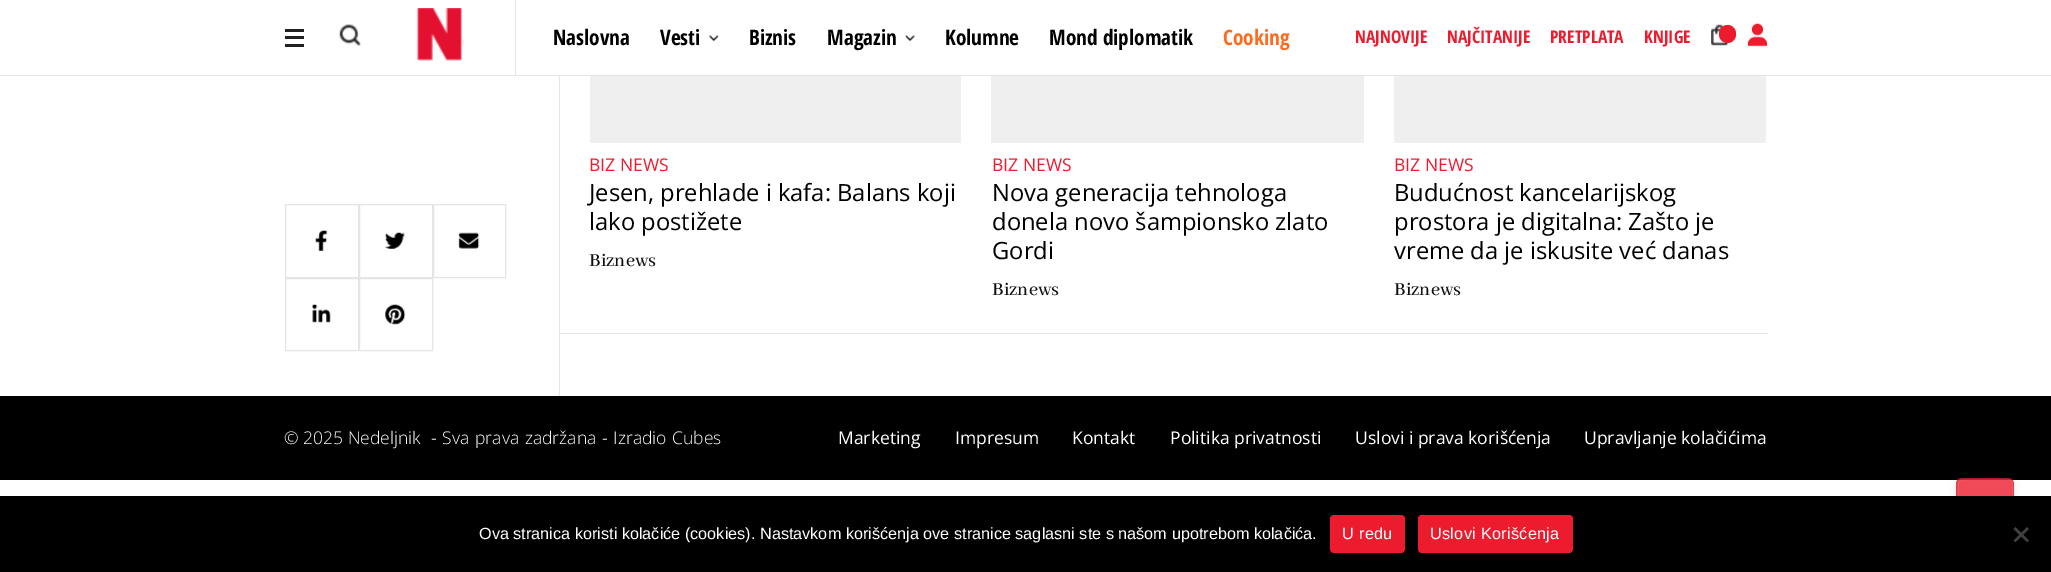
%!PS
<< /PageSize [2051 572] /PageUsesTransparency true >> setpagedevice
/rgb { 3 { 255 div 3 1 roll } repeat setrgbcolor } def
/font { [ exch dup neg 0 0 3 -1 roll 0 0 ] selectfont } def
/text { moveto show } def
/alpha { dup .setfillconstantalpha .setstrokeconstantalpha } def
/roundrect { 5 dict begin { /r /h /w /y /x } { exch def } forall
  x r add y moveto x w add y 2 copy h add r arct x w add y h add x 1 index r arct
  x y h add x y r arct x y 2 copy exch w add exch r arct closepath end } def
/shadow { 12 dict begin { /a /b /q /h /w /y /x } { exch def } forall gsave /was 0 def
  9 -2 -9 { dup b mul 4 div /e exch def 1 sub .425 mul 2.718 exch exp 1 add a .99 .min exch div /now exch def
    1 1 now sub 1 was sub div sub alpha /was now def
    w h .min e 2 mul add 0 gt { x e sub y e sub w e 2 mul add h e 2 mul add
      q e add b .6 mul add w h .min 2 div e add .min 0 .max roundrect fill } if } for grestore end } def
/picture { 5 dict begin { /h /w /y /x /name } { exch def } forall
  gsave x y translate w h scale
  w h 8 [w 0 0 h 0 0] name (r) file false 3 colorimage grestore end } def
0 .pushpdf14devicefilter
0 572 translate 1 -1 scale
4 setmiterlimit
255 255 255 rgb
0 0 2051 572 rectfill
229 229 229 rgb
0 75 2051 1 rectfill
33 33 33 rgb
285 29 19 3 rectfill
285 36 19 3 rectfill
285 44 19 3 rectfill
(img_01.rgb) 339 24 22 22 picture
(img_02.rgb) 416 8 48 53 picture
229 229 229 rgb
515 0 1 75 rectfill
(img_03.rgb) 708 35 11 7 picture
(img_04.rgb) 905 35 10 7 picture
(img_05.rgb) 1711 24 17 22 picture
236 27 46 rgb
1719 25 17 18 8.5 roundrect fill
(img_06.rgb) 1747 23 21 24 picture
229 229 229 rgb
285.5 204.5 73 73 rectstroke
(img_07.rgb) 315 230 13 21 picture
359.5 204.5 73 73 rectstroke
(img_08.rgb) 385 232 20 17 picture
433.5 204.5 72 73 rectstroke
(img_09.rgb) 458 232 22 17 picture
285.5 278.5 73 72 rectstroke
(img_10.rgb) 312 304 19 19 picture
359.5 278.5 73 72 rectstroke
(img_11.rgb) 385 304 21 21 picture
559 76 1 320 rectfill
560 333 1208 1 rectfill
239 239 239 rgb
590 76 371 67 rectfill
991 76 373 67 rectfill
1394 76 372 67 rectfill
0 0 0 rgb
0 396 2051 84 rectfill
gsave
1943 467 moveto 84 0 rlineto 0 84 rlineto -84 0 rlineto closepath 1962 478 moveto 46 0 rlineto 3.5 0 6 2.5 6 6 rcurveto 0 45 rlineto 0 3.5 -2.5 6 -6 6 rcurveto -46 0 rlineto -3.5 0 -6 -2.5 -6 -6 rcurveto 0 -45 rlineto 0 -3.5 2.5 -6 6 -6 rcurveto closepath eoclip newpath
1956 480 58 58 6 4 0.08 shadow
grestore
0.8 alpha
236 27 46 rgb
1956 478 58 57 6 roundrect fill
0.08 alpha
255 255 255 rgb
1958.5 479.5 54 54 4.5 roundrect stroke
0.09 alpha
0 0 0 rgb
1956.5 478.5 57 56 5.5 roundrect stroke
1 alpha
0 496 2051 76 rectfill
236 27 46 rgb
1330 515 75 38 4 roundrect fill
1418 515 155 38 4 roundrect fill
64 64 64 rgb
2027 527 moveto 2 2 rlineto -13.5 13 rlineto -2 -1.5 rlineto closepath fill
2013.5 529 moveto 2 -2 rlineto 13.5 13.5 rlineto -2 1.5 rlineto closepath fill
/OpenSansCondensed-Bold 21.25 font
0 0 0 rgb
(Naslovna) 553 45 text
(Vesti) 660 45 text
(Biznis) 749 45 text
(Magazin) 827 45 text
(Kolumne) 945 45 text
(Mond diplomatik) 1049 45 text
255 107 29 rgb
(Cooking) 1223 45 text
/OpenSansCondensed-Bold 17.5 font
236 27 46 rgb
(NAJNOVIJE) 1355 43 text
(NAJČITANIJE) 1447 43 text
(PRETPLATA) 1550 43 text
(KNJIGE) 1644 43 text
/OpenSans-Regular 17.5 font
(BIZ NEWS) 589 171 text
/OpenSans-Regular 23.75 font
0 0 0 rgb
(Jesen, prehlade i kafa: Balans koji) 589 201 text
(lako postižete) 589 230 text
/AbhayaLibreMedium-Medium 20 font
15 15 15 rgb
(Biznews) 589 266 text
/OpenSans-Regular 17.5 font
236 27 46 rgb
(BIZ NEWS) 992 171 text
/OpenSans-Regular 23.75 font
0 0 0 rgb
(Nova generacija tehnologa) 992 201 text
(donela novo šampionsko zlato) 992 230 text
(Gordi) 992 259 text
/AbhayaLibreMedium-Medium 20 font
15 15 15 rgb
(Biznews) 992 295 text
/OpenSans-Regular 17.5 font
236 27 46 rgb
(BIZ NEWS) 1394 171 text
/OpenSans-Regular 23.75 font
0 0 0 rgb
(Budućnost kancelarijskog) 1394 201 text
(prostora je digitalna: Zašto je) 1394 230 text
(vreme da je iskusite već danas) 1394 259 text
/AbhayaLibreMedium-Medium 20 font
15 15 15 rgb
(Biznews) 1394 295 text
/OpenSans-Light 17.5 font
255 255 255 rgb
(© 2025 Nedeljnik) 284 444 text
431 444 moveto 1.25 0 32 (- Sva prava zadržana - Izradio) widthshow
(Cubes) 672 444 text
/OpenSans-Regular 17.5 font
(Marketing) 838 444 text
(Impresum) 955 444 text
(Kontakt) 1072 444 text
(Politika privatnosti) 1170 444 text
(Uslovi i prava korišćenja) 1355 444 text
(Upravljanje kolačićima) 1584 444 text
/LiberationSans-Regular 16.25 font
(Ova stranica koristi kolačiće \(cookies\). Nastavkom korišćenja ove stranice saglasni ste s našom upotrebom kolačića.) 479 539 text
1342 539 moveto 0.3 0 (U redu) ashow
1430 539 moveto 0.3 0 (Uslovi Korišćenja) ashow
.poppdf14devicefilter showpage
